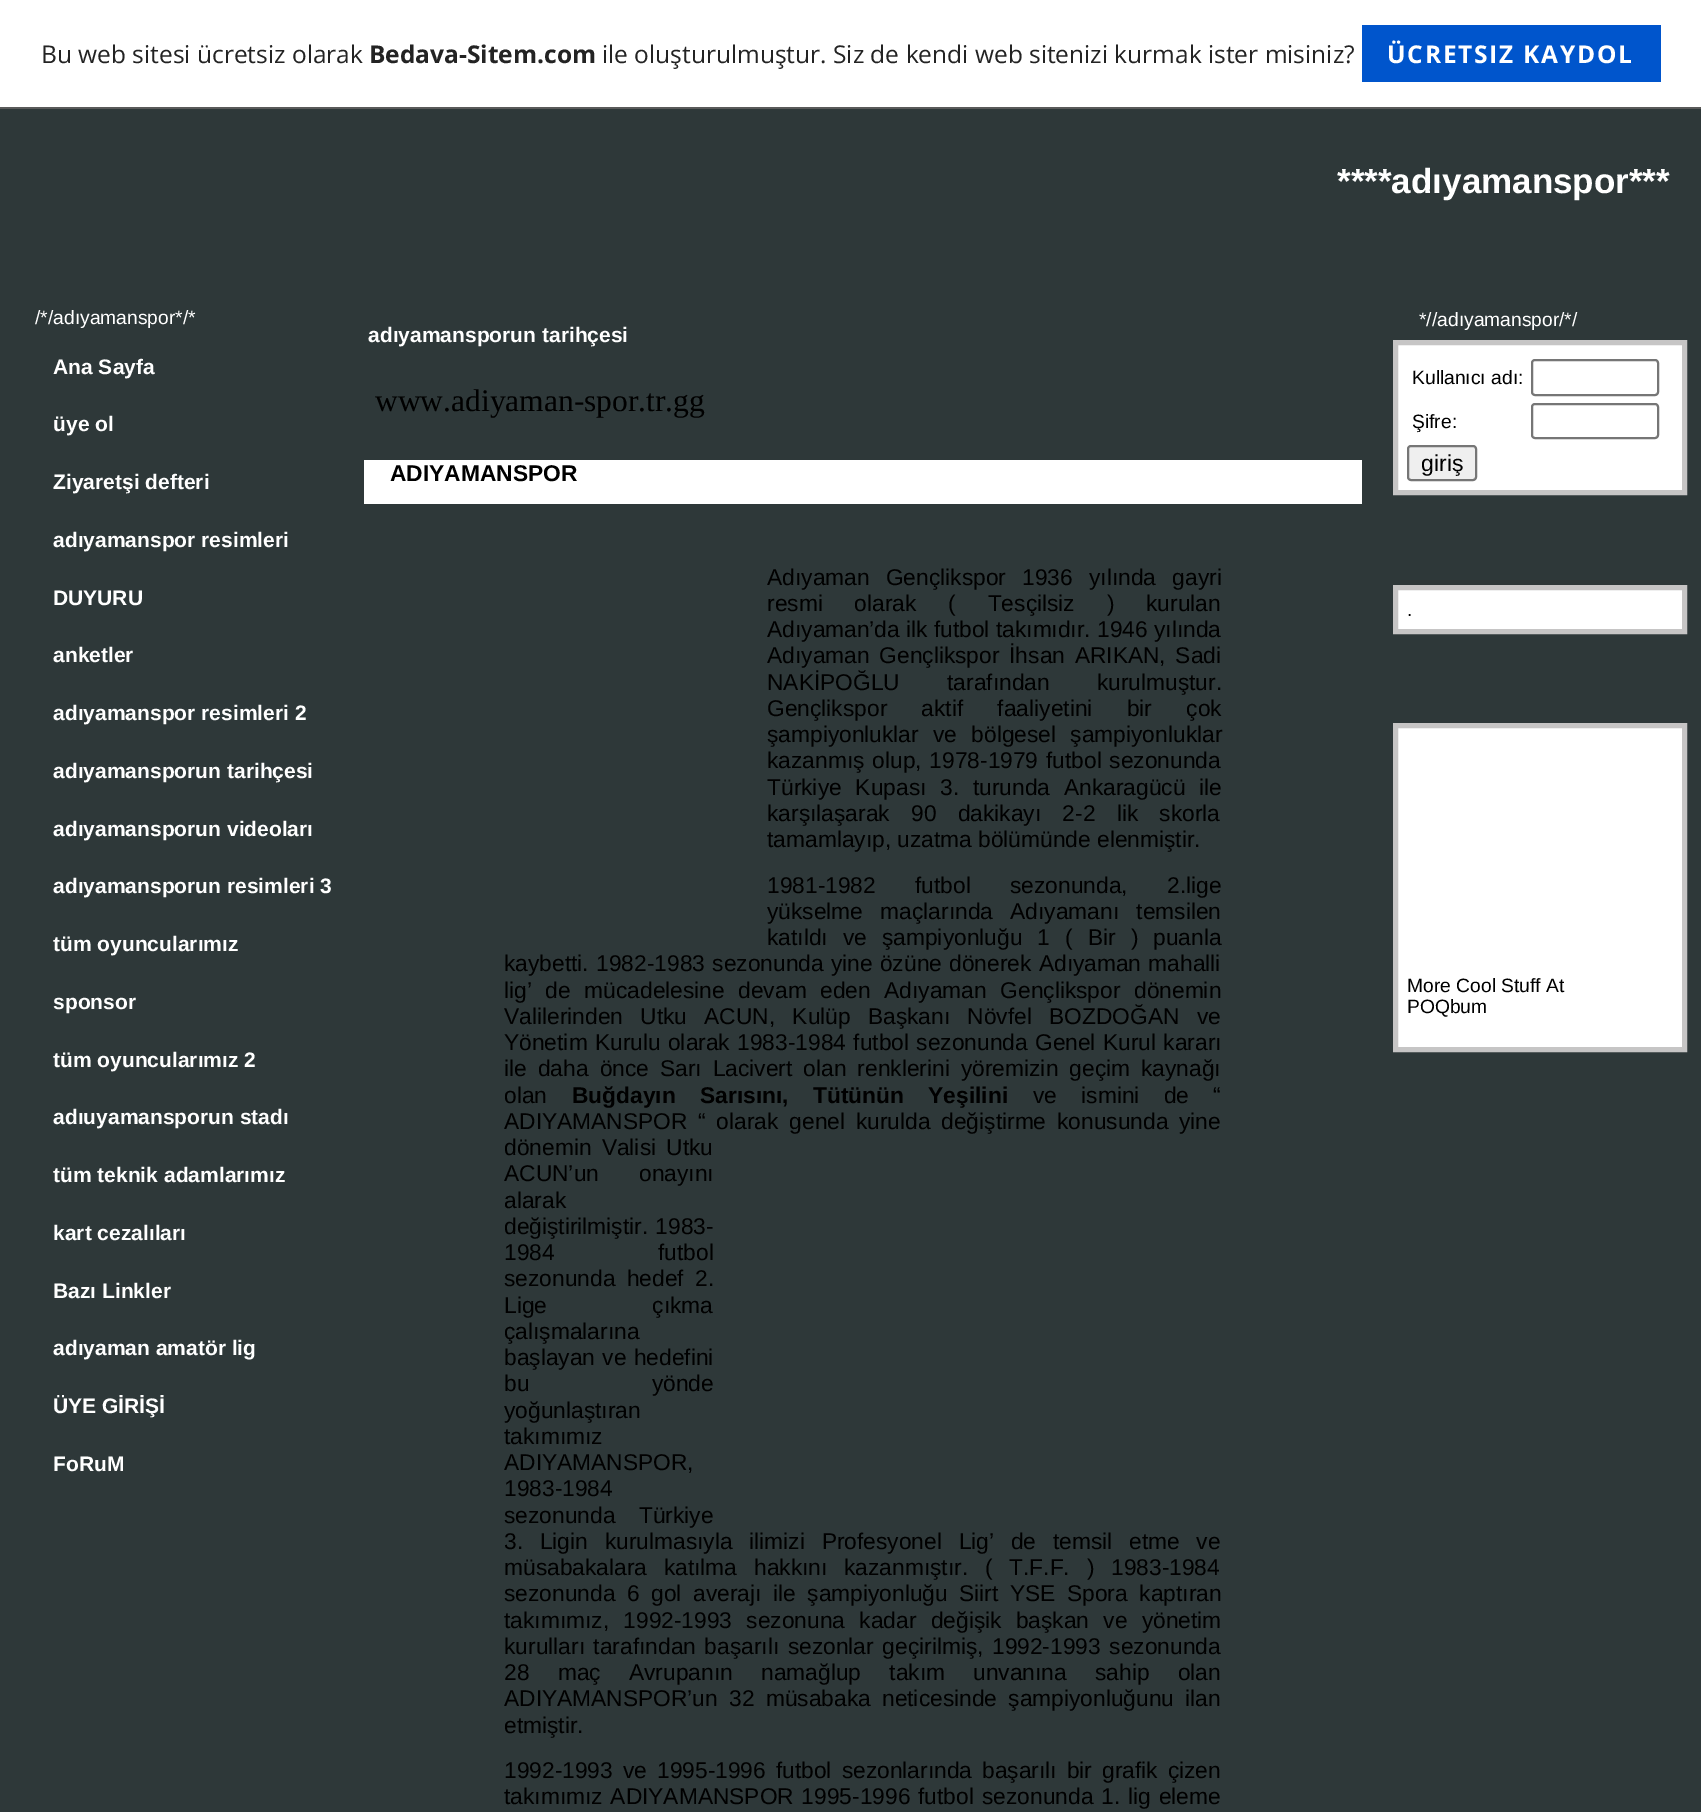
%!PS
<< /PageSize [1701 1812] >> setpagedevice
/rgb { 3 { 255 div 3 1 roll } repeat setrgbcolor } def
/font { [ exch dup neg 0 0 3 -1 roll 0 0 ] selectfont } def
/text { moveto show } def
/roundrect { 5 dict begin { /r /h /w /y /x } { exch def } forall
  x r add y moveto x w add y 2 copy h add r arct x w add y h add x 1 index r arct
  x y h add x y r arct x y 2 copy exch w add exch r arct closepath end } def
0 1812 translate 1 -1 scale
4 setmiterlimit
46 56 57 rgb
0 0 1701 1812 rectfill
255 255 255 rgb
0 0 1701 107 rectfill
90 90 90 rgb
0 107 1701 2 rectfill
0 85 204 rgb
1362 25 299 57 rectfill
255 255 255 rgb
364 460 998 44 rectfill
1395.5 342.5 moveto 289 0 rlineto 0 150 rlineto -289 0 rlineto closepath gsave fill grestore
198 197 197 rgb
5 setlinewidth
stroke
118 118 118 rgb
2 setlinewidth
1532 360 126 35 3 roundrect stroke
1532 404 126 34 3 roundrect stroke
239 239 239 rgb
1408 446 68 34 3 roundrect gsave fill grestore
118 118 118 rgb
stroke
255 255 255 rgb
1395.5 587.5 moveto 289 0 rlineto 0 44 rlineto -289 0 rlineto closepath gsave fill grestore
198 197 197 rgb
5 setlinewidth
stroke
255 255 255 rgb
1395.5 725.5 moveto 289 0 rlineto 0 324 rlineto -289 0 rlineto closepath gsave fill grestore
198 197 197 rgb
stroke
/OpenSans-Regular 24.5 font
35 35 35 rgb
(Bu web sitesi ücretsiz olarak) 41 63 text
/OpenSans-Bold 24.5 font
(Bedava-Sitem.com) 369 63 text
/OpenSans-Regular 24.5 font
(ile oluşturulmuştur. Siz de kendi web sitenizi kurmak ister misiniz?) 602 63 text
/OpenSans-Bold 24.5 font
255 255 255 rgb
1387 63 moveto 1.75 0 (ÜCRETSIZ KAYDOL) ashow
/LiberationSans-Bold 35 font
(****adıyamanspor***) 1337 193 text
/LiberationSans-Regular 19.25 font
(/*/adıyamanspor*/*) 35 324 text
/LiberationSans-Bold 21 font
(Ana Sayfa) 53 374 text
(üye ol) 53 431 text
(Ziyaretşi defteri) 53 489 text
(adıyamanspor resimleri) 53 547 text
(DUYURU) 53 605 text
(anketler) 53 662 text
(adıyamanspor resimleri 2) 53 720 text
(adıyamansporun tarihçesi) 53 778 text
(adıyamansporun videoları) 53 836 text
(adıyamansporun resimleri 3) 53 893 text
(tüm oyuncularımız) 53 951 text
(sponsor) 53 1009 text
(tüm oyuncularımız 2) 53 1067 text
(adıuyamansporun stadı) 53 1124 text
(tüm teknik adamlarımız) 53 1182 text
(kart cezalıları) 53 1240 text
(Bazı Linkler) 53 1298 text
(adıyaman amatör lig) 53 1355 text
(ÜYE GİRİŞİ) 53 1413 text
(FoRuM) 53 1471 text
(adıyamansporun tarihçesi) 368 342 text
/LiberationSerif-Regular 31.5 font
0 0 0 rgb
(www.adiyaman-spor.tr.gg) 375 411 text
/LiberationSans-Bold 22.75 font
(ADIYAMANSPOR) 390 481 text
/LiberationSans-Regular 22.75 font
767 585 moveto 10 0 32 (Adıyaman Gençlikspor 1936 yılında gayri) widthshow
767 611 moveto 25.5 0 32 (resmi olarak \( Tesçilsiz \) kurulan) widthshow
(Adıyaman’da ilk futbol takımıdır. 1946 yılında) 767 637 text
767 663 moveto 3.5 0 32 (Adıyaman Gençlikspor İhsan ARIKAN, Sadi) widthshow
767 690 moveto 41 0 32 (NAKİPOĞLU tarafından kurulmuştur.) widthshow
767 716 moveto 28 0 32 (Gençlikspor aktif faaliyetini bir çok) widthshow
767 742 moveto 8 0 32 (şampiyonluklar ve bölgesel şampiyonluklar) widthshow
767 768 moveto 1.5 0 32 (kazanmış olup, 1978-1979 futbol sezonunda) widthshow
767 795 moveto 7.5 0 32 (Türkiye Kupası 3. turunda Ankaragücü ile) widthshow
767 821 moveto 15 0 32 (karşılaşarak 90 dakikayı 2-2 lik skorla) widthshow
(tamamlayıp, uzatma bölümünde elenmiştir.) 767 847 text
767 893 moveto 33 0 32 (1981-1982 futbol sezonunda, 2.lige) widthshow
767 919 moveto 11 0 32 (yükselme maçlarında Adıyamanı temsilen) widthshow
767 945 moveto 8.75 0 32 (katıldı ve şampiyonluğu 1 \( Bir \) puanla) widthshow
504 971 moveto 1 0 32 (kaybetti. 1982-1983 sezonunda yine özüne dönerek Adıyaman mahalli) widthshow
504 998 moveto 7.25 0 32 (lig’ de mücadelesine devam eden Adıyaman Gençlikspor dönemin) widthshow
504 1024 moveto 11 0 32 (Valilerinden Utku ACUN, Kulüp Başkanı Növfel BOZDOĞAN ve) widthshow
504 1050 moveto 1 0 32 (Yönetim Kurulu olarak 1983-1984 futbol sezonunda Genel Kurul kararı) widthshow
504 1076 moveto 4.75 0 32 (ile daha önce Sarı Lacivert olan renklerini yöremizin geçim kaynağı) widthshow
(olan) 504 1103 text
/LiberationSans-Bold 22.75 font
572 1103 moveto 18 0 32 (Buğdayın Sarısını,) widthshow
813 1103 moveto 18 0 32 (Tütünün Yeşilini) widthshow
/LiberationSans-Regular 22.75 font
1033 1103 moveto 18 0 32 (ve ismini de “) widthshow
504 1129 moveto 4.5 0 32 (ADIYAMANSPOR “ olarak genel kurulda değiştirme konusunda yine) widthshow
504 1155 moveto 4 0 32 (dönemin Valisi Utku) widthshow
504 1181 moveto 34 0 32 (ACUN’un onayını) widthshow
(alarak) 504 1208 text
504 1234 moveto 1 0 32 (değiştirilmiştir. 1983-) widthshow
504 1260 moveto 97 0 32 (1984 futbol) widthshow
504 1286 moveto 5 0 32 (sezonunda hedef 2.) widthshow
504 1313 moveto 99 0 32 (Lige çıkma) widthshow
(çalışmalarına) 504 1339 text
504 1365 moveto 1 0 32 (başlayan ve hedefini) widthshow
504 1391 moveto 116 0 32 (bu yönde) widthshow
(yoğunlaştıran) 504 1418 text
(takımımız) 504 1444 text
(ADIYAMANSPOR,) 504 1470 text
(1983-1984) 504 1496 text
504 1523 moveto 17 0 32 (sezonunda Türkiye) widthshow
504 1549 moveto 10.5 0 32 (3. Ligin kurulmasıyla ilimizi Profesyonel Lig’ de temsil etme ve) widthshow
504 1575 moveto 10.5 0 32 (müsabakalara katılma hakkını kazanmıştır. \( T.F.F. \) 1983-1984) widthshow
504 1601 moveto 5.25 0 32 (sezonunda 6 gol averajı ile şampiyonluğu Siirt YSE Spora kaptıran) widthshow
504 1628 moveto 8 0 32 (takımımız, 1992-1993 sezonuna kadar değişik başkan ve yönetim) widthshow
504 1654 moveto 2.25 0 32 (kurulları tarafından başarılı sezonlar geçirilmiş, 1992-1993 sezonunda) widthshow
504 1680 moveto 22 0 32 (28 maç Avrupanın namağlup takım unvanına sahip olan) widthshow
504 1706 moveto 5 0 32 (ADIYAMANSPOR’un 32 müsabaka neticesinde şampiyonluğunu ilan) widthshow
(etmiştir.) 504 1733 text
504 1778 moveto 3.75 0 32 (1992-1993 ve 1995-1996 futbol sezonlarında başarılı bir grafik çizen) widthshow
504 1804 moveto 1.5 0 32 (takımımız ADIYAMANSPOR 1995-1996 futbol) widthshow
982 1804 moveto 1.5 0 32 (sezonunda 1. lig eleme) widthshow
/LiberationSans-Regular 19.25 font
255 255 255 rgb
(*//adıyamanspor/*/) 1419 326 text
0 0 0 rgb
(Kullanıcı adı:) 1412 384 text
(Şifre:) 1412 428 text
/LiberationSans-Regular 23 font
(giriş) 1421 471 text
/LiberationSans-Regular 19.25 font
(.) 1407 616 text
(More Cool Stuff At) 1407 992 text
(POQbum) 1407 1013 text
showpage
